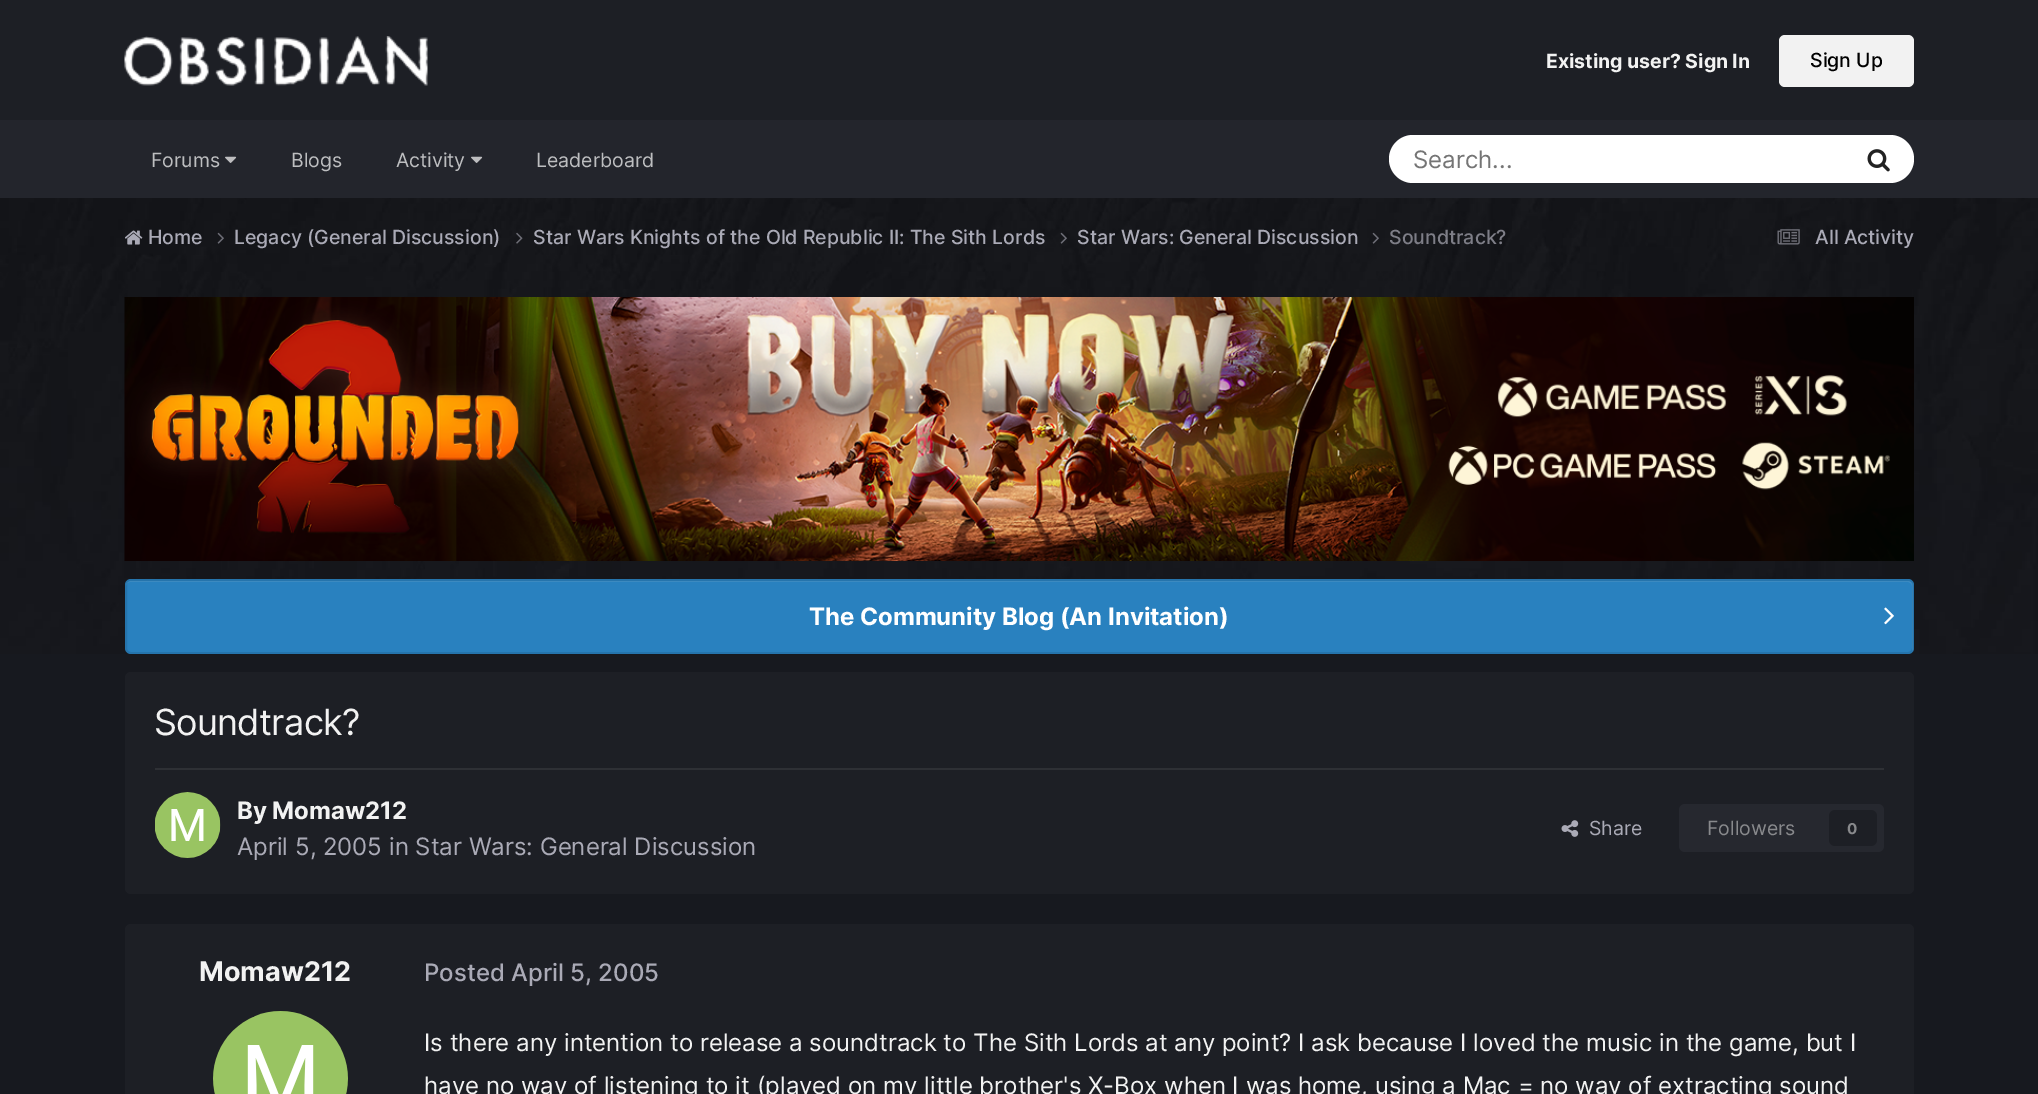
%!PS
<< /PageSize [2038 1094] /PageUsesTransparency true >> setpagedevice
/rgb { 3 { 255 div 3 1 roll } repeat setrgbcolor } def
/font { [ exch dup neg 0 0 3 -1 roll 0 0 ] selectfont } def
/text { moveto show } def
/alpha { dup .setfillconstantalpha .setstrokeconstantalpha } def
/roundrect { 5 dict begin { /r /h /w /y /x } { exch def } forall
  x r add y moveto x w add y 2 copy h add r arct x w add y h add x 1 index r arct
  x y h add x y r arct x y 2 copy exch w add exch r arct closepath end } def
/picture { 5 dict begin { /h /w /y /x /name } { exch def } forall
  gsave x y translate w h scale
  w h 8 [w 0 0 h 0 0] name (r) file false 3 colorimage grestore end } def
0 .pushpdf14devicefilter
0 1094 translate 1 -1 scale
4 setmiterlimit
23 25 31 rgb
0 0 2038 1094 rectfill
29 31 37 rgb
0 0 2038 120 rectfill
(img_01.rgb) 124 36 304 50 picture
242 242 242 rgb
1779 35 135 52 6 roundrect fill
35 37 44 rgb
0 120 2038 78 rectfill
(img_02.rgb) 225 156 12 7 picture
(img_02.rgb) 471 156 12 7 picture
255 255 255 rgb
1389 135 525 48 24 roundrect fill
(img_03.rgb) 1867 149 23 23 picture
(img_04.rgb) 0 198 2038 456 picture
(img_05.rgb) 125 230 18 15 picture
(img_06.rgb) 217 232 7 12 picture
(img_07.rgb) 516 232 7 12 picture
(img_08.rgb) 1060 232 7 12 picture
(img_09.rgb) 1372 232 7 12 picture
(img_10.rgb) 1777 229 23 16 picture
(img_11.rgb) 124 297 1790 264 picture
41 129 191 rgb
125 579 1789 75 6 roundrect fill
62 142 197 rgb
130 582 moveto 1778 0 rlineto 2 0 4 2 4 4 rcurveto 0 65 rlineto 1 -1 1 -2 1 -3 rcurveto 0 -62 rlineto 0 -3 -2 -5 -5 -5 rcurveto -1777 0 rlineto -3 0 -5 2 -5 5 rcurveto 0 -2 2 -4 4 -4 rcurveto closepath fill
0.1 alpha
0 0 0 rgb
2 setlinewidth
126 580 1787 73 5 roundrect stroke
1 alpha
(img_12.rgb) 1884 607 10 18 picture
29 31 37 rgb
125 672 1789 222 6 roundrect fill
46 48 53 rgb
155 768 1729 2 rectfill
(img_13.rgb) 155 792 66 66 picture
(img_14.rgb) 1561 820 18 17 picture
38 40 47 rgb
1679 804 205 48 6 roundrect fill
29 31 37 rgb
1829 810 48 36 6 roundrect fill
125 924 1789 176 6 roundrect fill
(img_15.rgb) 213 1011 135 83 picture
/Inter-Bold 19.5 font
242 242 242 rgb
(Existing user? Sign In) 1546 68 text
/Inter-Medium 19.5 font
0 0 0 rgb
(Sign Up) 1810 67 text
/Inter-Regular 19.5 font
189 190 192 rgb
(Forums) 151 167 text
(Blogs) 291 167 text
(Activity) 396 167 text
(Leaderboard) 536 167 text
/Inter-Regular 24 font
117 117 117 rgb
(Search...) 1413 168 text
/Inter-Medium 19.5 font
170 170 182 rgb
(Home) 148 244 text
(Legacy \(General Discussion\)) 234 244 text
(Star Wars Knights of the Old Republic II: The Sith Lords) 533 244 text
(Star Wars: General Discussion) 1077 244 text
126 126 135 rgb
(Soundtrack?) 1389 244 text
170 170 182 rgb
(All Activity) 1815 244 text
/Inter-Bold 24 font
255 255 255 rgb
(The Community Blog \(An Invitation\)) 809 625 text
/Inter-Regular 36 font
242 242 242 rgb
154 735 moveto -0.75 0 (Soundtrack?) ashow
/Inter-Bold 24 font
(By Momaw212) 237 819 text
/Inter-Regular 24 font
170 170 182 rgb
(April 5, 2005 in Star Wars: General Discussion) 237 855 text
/Inter-Regular 19.5 font
(Share) 1589 835 text
136 137 140 rgb
(Followers) 1707 835 text
/Inter-Bold 15 font
(0) 1847 834 text
/Inter-Bold 27 font
242 242 242 rgb
(Momaw212) 199 981 text
/Inter-Medium 24 font
170 170 182 rgb
(Posted April 5, 2005) 424 981 text
/Inter-Regular 24 font
242 242 242 rgb
(Is there any intention to release a soundtrack to The Sith Lords at any point? I ask because I loved the music in the game, but I) 424 1051 text
(have no way of listening to it \(played on my little brother's X-Box when I was home, using a Mac = no way of extracting sound) 424 1094 text
.poppdf14devicefilter showpage
